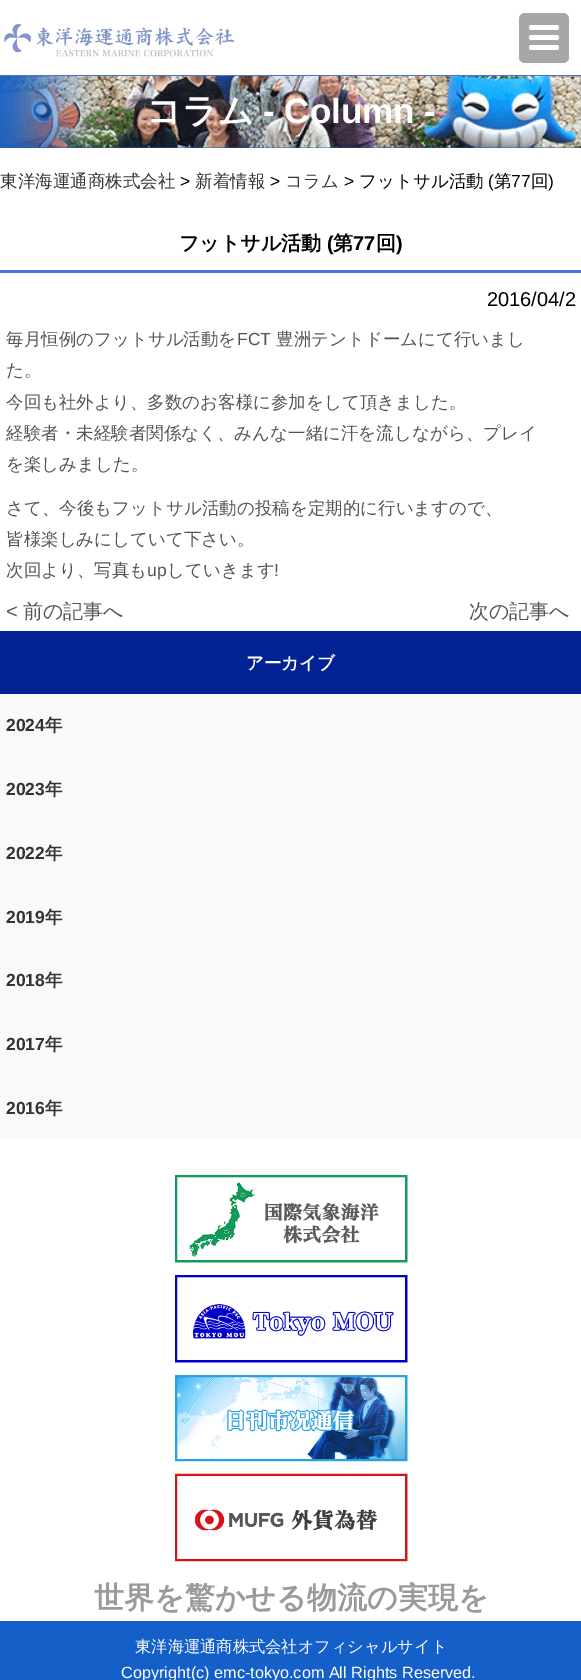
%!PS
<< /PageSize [581 1680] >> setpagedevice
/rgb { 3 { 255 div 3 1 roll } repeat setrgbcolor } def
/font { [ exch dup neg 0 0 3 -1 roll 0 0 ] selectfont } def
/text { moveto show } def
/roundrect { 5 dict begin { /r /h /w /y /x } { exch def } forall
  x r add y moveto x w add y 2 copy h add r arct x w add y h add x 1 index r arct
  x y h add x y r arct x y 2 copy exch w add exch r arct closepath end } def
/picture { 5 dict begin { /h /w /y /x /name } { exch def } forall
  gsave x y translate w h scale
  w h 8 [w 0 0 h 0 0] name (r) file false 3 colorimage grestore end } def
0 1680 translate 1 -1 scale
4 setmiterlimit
255 255 255 rgb
0 0 581 1680 rectfill
74 114 213 rgb
0 75 581 1 rectfill
167 167 167 rgb
519 13 50 50 6 roundrect fill
255 255 255 rgb
529 25 30 5 2.5 roundrect fill
529 35 30 5 2.5 roundrect fill
529 45 30 5 2.5 roundrect fill
(img_01.rgb) 4 24 231 33 picture
22 96 200 rgb
0 147 581 1 rectfill
(img_02.rgb) 0 76 581 72 picture
74 114 214 rgb
0 270 581 3 rectfill
3 34 148 rgb
0 631 581 63 rectfill
249 249 249 rgb
0 694 581 126 rectfill
255 255 255 rgb
0 756 581 1 rectfill
249 249 249 rgb
0 821 581 63 rectfill
0 885 581 63 rectfill
0 949 581 126 rectfill
255 255 255 rgb
0 1011 581 1 rectfill
249 249 249 rgb
0 1076 581 63 rectfill
(img_03.rgb) 175 1175 233 88 picture
(img_04.rgb) 175 1275 233 88 picture
(img_05.rgb) 175 1375 233 87 picture
(img_06.rgb) 175 1473 233 89 picture
21 96 200 rgb
0 1621 581 59 rectfill
/WenQuanYiZenHei-Bold 35 font
255 255 255 rgb
(コラム) 146 123 text
/LiberationSans-Bold 35 font
(- Column -) 263 123 text
/WenQuanYiZenHei-Medium 17.5 font
51 51 51 rgb
(東洋海運通商株式会社) 0 187 text
/LiberationSans-Regular 17.5 font
0 0 0 rgb
(>) 180 187 text
/WenQuanYiZenHei-Medium 17.5 font
51 51 51 rgb
(新着情報) 195 187 text
/LiberationSans-Regular 17.5 font
0 0 0 rgb
(>) 270 187 text
/WenQuanYiZenHei-Medium 17.5 font
51 51 51 rgb
(コラム) 285 187 text
/LiberationSans-Regular 17.5 font
0 0 0 rgb
(>) 344 187 text
/WenQuanYiZenHei-Medium 17.5 font
(フットサル活動) 359 187 text
/LiberationSans-Regular 17.5 font
(\() 488 187 text
/WenQuanYiZenHei-Medium 17.5 font
(第) 494 187 text
/LiberationSans-Regular 17.5 font
(77) 511 187 text
/WenQuanYiZenHei-Medium 17.5 font
(回) 531 187 text
/LiberationSans-Regular 17.5 font
(\)) 548 187 text
/WenQuanYiZenHei-Bold 20 font
(フットサル活動) 179 250 text
/LiberationSans-Bold 20 font
(\() 327 250 text
/WenQuanYiZenHei-Bold 20 font
(第) 333 250 text
/LiberationSans-Bold 20 font
(77) 353 250 text
/WenQuanYiZenHei-Bold 20 font
(回) 376 250 text
/LiberationSans-Bold 20 font
(\)) 396 250 text
/LiberationSans-Regular 20 font
(2016/04/2) 487 306 text
/WenQuanYiZenHei-Medium 17.5 font
84 84 84 rgb
(毎月恒例のフットサル活動を) 6 345 text
/LiberationSans-Regular 17.5 font
(FCT) 237 345 text
/WenQuanYiZenHei-Medium 17.5 font
(豊洲テントドームにて行いまし) 276 345 text
(た。) 6 376 text
(今回も社外より、多数のお客様に参加をして頂きました。) 6 408 text
(経験者・未経験者関係なく、みんな一緒に汗を流しながら、プレイ) 6 439 text
(を楽しみました。) 6 470 text
(さて、今後もフットサル活動の投稿を定期的に行いますので、) 6 514 text
(皆様楽しみにしていて下さい。) 6 545 text
(次回より、写真も) 6 576 text
/LiberationSans-Regular 17.5 font
(up) 147 576 text
/WenQuanYiZenHei-Medium 17.5 font
(していきます) 167 576 text
/LiberationSans-Regular 17.5 font
(!) 274 576 text
/LiberationSans-Regular 20 font
(<) 6 618 text
/WenQuanYiZenHei-Medium 20 font
(前の記事へ) 23 618 text
(次の記事へ) 469 618 text
/WenQuanYiZenHei-Bold 17.5 font
255 255 255 rgb
(アーカイブ) 246 669 text
/LiberationSans-Bold 17.5 font
51 51 51 rgb
(2024) 6 731 text
/WenQuanYiZenHei-Bold 17.5 font
(年) 45 731 text
/LiberationSans-Bold 17.5 font
(2023) 6 795 text
/WenQuanYiZenHei-Bold 17.5 font
(年) 45 795 text
/LiberationSans-Bold 17.5 font
(2022) 6 859 text
/WenQuanYiZenHei-Bold 17.5 font
(年) 45 859 text
/LiberationSans-Bold 17.5 font
(2019) 6 923 text
/WenQuanYiZenHei-Bold 17.5 font
(年) 45 923 text
/LiberationSans-Bold 17.5 font
(2018) 6 986 text
/WenQuanYiZenHei-Bold 17.5 font
(年) 45 986 text
/LiberationSans-Bold 17.5 font
(2017) 6 1050 text
/WenQuanYiZenHei-Bold 17.5 font
(年) 45 1050 text
/LiberationSans-Bold 17.5 font
(2016) 6 1114 text
/WenQuanYiZenHei-Bold 17.5 font
(年) 45 1114 text
/WenQuanYiZenHei-Bold 30 font
154 154 154 rgb
(世界を驚かせる物流の実現を) 94 1608 text
/WenQuanYiZenHei-Medium 16.25 font
255 255 255 rgb
(東洋海運通商株式会社オフィシャルサイト) 135 1652 text
/LiberationSans-Regular 16.25 font
(Copyright\(c\) emc-tokyo.com All Rights Reserved.) 121 1678 text
showpage
